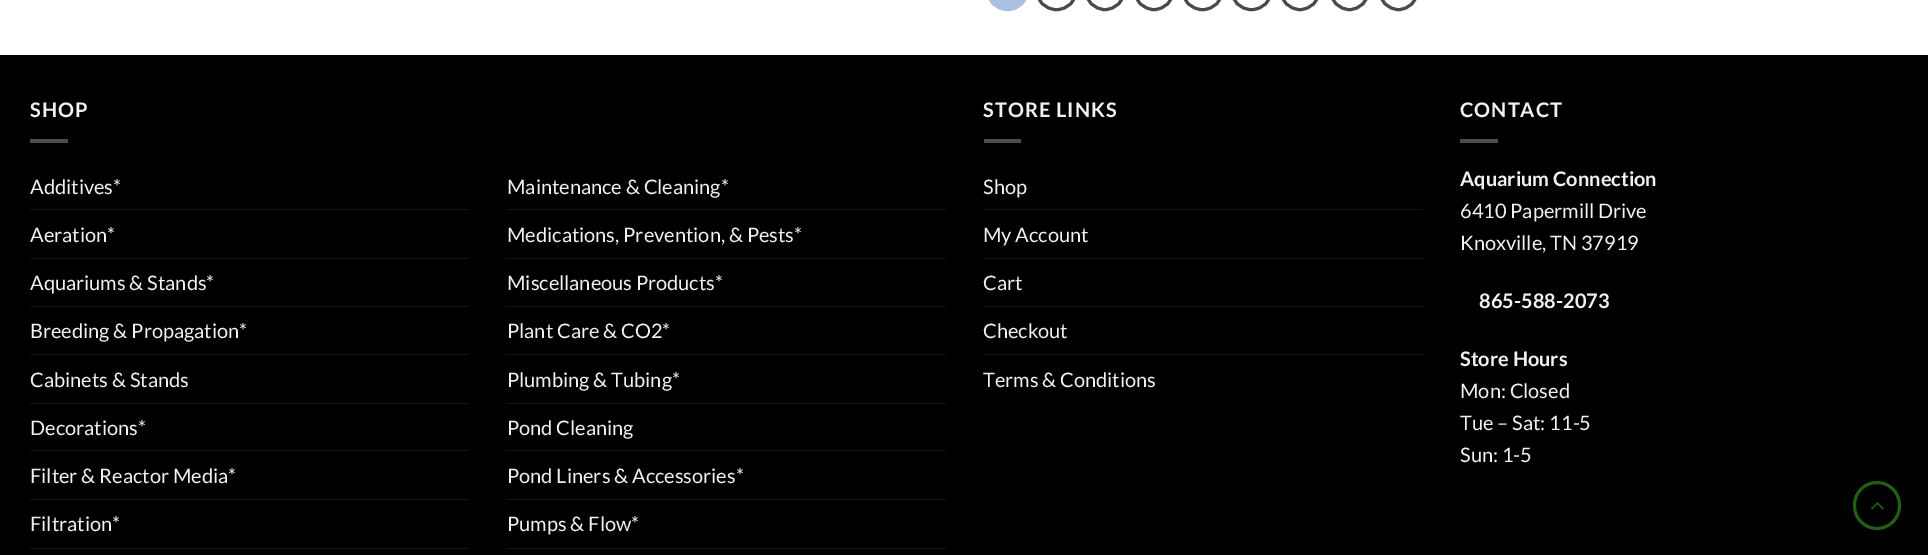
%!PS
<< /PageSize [1928 555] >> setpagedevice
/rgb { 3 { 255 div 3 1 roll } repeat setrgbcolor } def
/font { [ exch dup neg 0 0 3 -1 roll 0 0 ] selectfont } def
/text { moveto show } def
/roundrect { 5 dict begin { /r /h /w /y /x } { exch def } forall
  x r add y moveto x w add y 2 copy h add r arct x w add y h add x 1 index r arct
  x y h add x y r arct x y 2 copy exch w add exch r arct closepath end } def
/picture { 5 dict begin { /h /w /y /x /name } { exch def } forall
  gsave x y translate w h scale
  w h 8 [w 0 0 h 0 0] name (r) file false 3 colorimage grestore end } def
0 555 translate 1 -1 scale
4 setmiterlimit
255 255 255 rgb
0 0 1928 555 rectfill
169 192 224 rgb
987.5 -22.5 40 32 19.5 roundrect gsave fill grestore
3 setlinewidth
stroke
74 74 74 rgb
1036.5 -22.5 40 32 19.5 roundrect stroke
1085.5 -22.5 39 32 19.5 roundrect stroke
1134.5 -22.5 39 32 19.5 roundrect stroke
1182.5 -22.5 40 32 19.5 roundrect stroke
1231.5 -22.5 40 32 19.5 roundrect stroke
1280.5 -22.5 39 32 19.5 roundrect stroke
1330.5 -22.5 38 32 19 roundrect stroke
1379.5 -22.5 38 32 19 roundrect stroke
0 0 0 rgb
0 55 1928 500 rectfill
77 77 77 rgb
30 139 38 4 rectfill
20 20 20 rgb
30 209 439 1 rectfill
30 258 439 1 rectfill
30 306 439 1 rectfill
30 354 439 1 rectfill
30 403 439 1 rectfill
30 450 439 1 rectfill
30 499 439 1 rectfill
30 548 439 1 rectfill
506 209 440 1 rectfill
506 258 440 1 rectfill
506 306 440 1 rectfill
506 354 440 1 rectfill
506 403 440 1 rectfill
506 450 440 1 rectfill
506 499 440 1 rectfill
506 548 440 1 rectfill
77 77 77 rgb
984 139 37 4 rectfill
20 20 20 rgb
984 209 439 1 rectfill
984 258 439 1 rectfill
984 306 439 1 rectfill
984 354 439 1 rectfill
77 77 77 rgb
1460 139 38 4 rectfill
32 94 19 rgb
1854.5 482.5 45 46 22.5 roundrect stroke
(img_01.rgb) 1871 502 13 8 picture
/Lato-Bold 20 font
241 241 241 rgb
30 117 moveto 1 0 (SHOP) ashow
/Lato-Regular 20 font
(Additives*) 30 194 text
(Aeration*) 30 242 text
(Aquariums & Stands*) 30 290 text
(Breeding & Propagation*) 30 338 text
(Cabinets & Stands) 30 387 text
(Decorations*) 30 435 text
(Filter & Reactor Media*) 30 483 text
(Filtration*) 30 531 text
(Maintenance & Cleaning*) 507 194 text
(Medications, Prevention, & Pests*) 507 242 text
(Miscellaneous Products*) 507 290 text
(Plant Care & CO2*) 507 338 text
(Plumbing & Tubing*) 507 387 text
(Pond Cleaning) 507 435 text
(Pond Liners & Accessories*) 507 483 text
(Pumps & Flow*) 507 531 text
/Lato-Bold 20 font
983 117 moveto 1 0 (STORE LINKS) ashow
/Lato-Regular 20 font
(Shop) 983 194 text
(My Account) 983 242 text
(Cart) 983 290 text
(Checkout) 983 338 text
(Terms & Conditions) 983 387 text
/Lato-Bold 20 font
1460 117 moveto 1 0 (CONTACT) ashow
(Aquarium Connection) 1460 186 text
/Lato-Regular 20 font
(6410 Papermill Drive) 1460 218 text
(Knoxville, TN 37919) 1460 250 text
/Lato-Bold 20 font
(865-588-2073) 1479 308 text
(Store Hours) 1460 366 text
/Lato-Regular 20 font
(Mon: Closed) 1460 398 text
(Tue – Sat: 11-5) 1460 430 text
(Sun: 1-5) 1460 462 text
showpage
